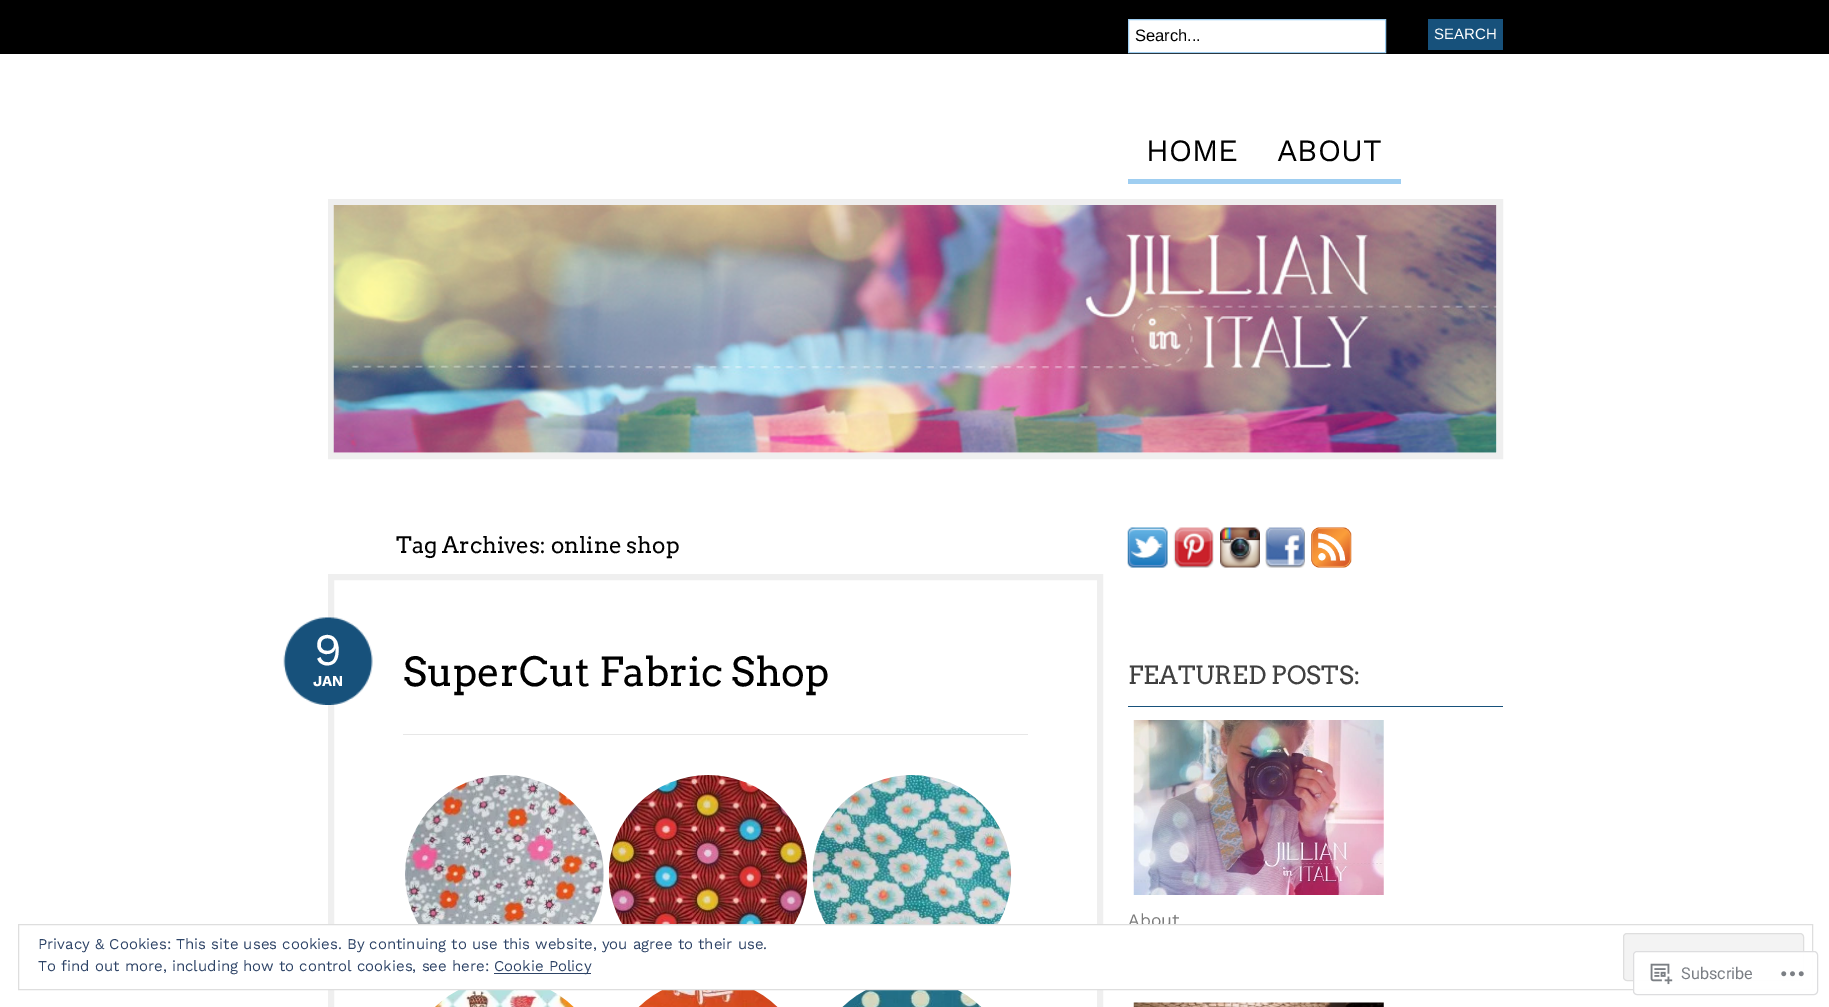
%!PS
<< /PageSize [1829 1007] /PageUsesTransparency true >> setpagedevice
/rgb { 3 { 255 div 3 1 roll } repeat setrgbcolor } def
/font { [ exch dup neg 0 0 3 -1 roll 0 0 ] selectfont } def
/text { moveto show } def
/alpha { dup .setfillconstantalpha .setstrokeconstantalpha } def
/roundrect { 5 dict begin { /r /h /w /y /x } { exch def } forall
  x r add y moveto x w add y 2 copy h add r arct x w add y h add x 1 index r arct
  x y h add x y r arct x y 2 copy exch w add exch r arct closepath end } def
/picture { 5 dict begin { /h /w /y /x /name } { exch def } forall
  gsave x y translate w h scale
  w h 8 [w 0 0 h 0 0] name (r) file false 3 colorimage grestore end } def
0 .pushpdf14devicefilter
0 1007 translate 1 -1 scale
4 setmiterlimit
255 255 255 rgb
0 0 1829 1007 rectfill
0 0 0 rgb
0 0 1829 54 rectfill
255 255 255 rgb
1128.5 19.5 moveto 257 0 rlineto 0 33 rlineto -257 0 rlineto closepath gsave fill grestore
159 206 241 rgb
stroke
23 81 123 rgb
1428 19 75 31 rectfill
159 206 241 rgb
1128 179 273 5 rectfill
239 239 239 rgb
6 setlinewidth
331 202 1169 254 rectstroke
(img_01.rgb) 333 205 1164 248 picture
331 577 769 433 rectstroke
(img_02.rgb) 283 617 90 88 picture
231 231 231 rgb
403 734 625 1 rectfill
(img_03.rgb) 405 775 199 149 picture
(img_04.rgb) 608 775 200 149 picture
(img_05.rgb) 812 775 200 149 picture
(img_06.rgb) 435 990 139 17 picture
(img_07.rgb) 638 990 140 17 picture
(img_08.rgb) 842 990 140 17 picture
(img_09.rgb) 1127 527 41 41 picture
(img_10.rgb) 1173 527 41 41 picture
(img_11.rgb) 1220 527 40 41 picture
(img_12.rgb) 1265 527 40 41 picture
(img_13.rgb) 1311 527 41 41 picture
23 81 123 rgb
1128 706 375 1 rectfill
(img_14.rgb) 1133 720 251 175 picture
(img_15.rgb) 1133 1002 251 5 picture
/LiberationSans-Regular 16.5 font
0 0 0 rgb
(Search...) 1135 41 text
/LiberationSans-Regular 15 font
255 255 255 rgb
(SEARCH) 1434 39 text
/WorkSans-Regular 31 font
0 0 0 rgb
(HOME) 1146 161 text
(ABOUT) 1277 161 text
/Arvo-Regular 22.5 font
(Tag Archives: online shop) 396 553 text
/WorkSans-Regular 45 font
255 255 255 rgb
(9) 314 665 text
/WorkSans-Bold 15 font
(JAN) 313 686 text
/Arvo-Regular 40 font
0 0 0 rgb
(SuperCut Fabric Shop) 403 686 text
/Arvo-Regular 25 font
64 64 64 rgb
(FEATURED POSTS:) 1128 684 text
/WorkSans-Regular 17.5 font
122 122 122 rgb
(About) 1128 926 text
255 255 255 rgb
328 925 851 64 rectfill
222 222 222 rgb
1 setlinewidth
18.5 924.5 1794 65 rectstroke
/WorkSans-Regular 15 font
46 68 103 rgb
(Privacy & Cookies: This site uses cookies. By continuing to use this website, you agree to their use.) 38 949 text
243 243 243 rgb
1623.5 933.5 180 47 3.5 roundrect gsave fill grestore
222 222 222 rgb
stroke
46 68 103 rgb
(To find out more, including how to control cookies, see here:) 38 971 text
494 973 97 1 rectfill
(Cookie Policy) 494 971 text
0.98 alpha
255 255 255 rgb
1633 951 185 44 4 roundrect fill
220 220 222 rgb
1633.5 951.5 184 43 3.5 roundrect stroke
1 alpha
(img_16.rgb) 1650 963 23 22 picture
/Roboto-Regular 16.25 font
122 126 132 rgb
(Subscribe) 1681 979 text
(img_17.rgb) 1781 971 23 6 picture
.poppdf14devicefilter showpage
